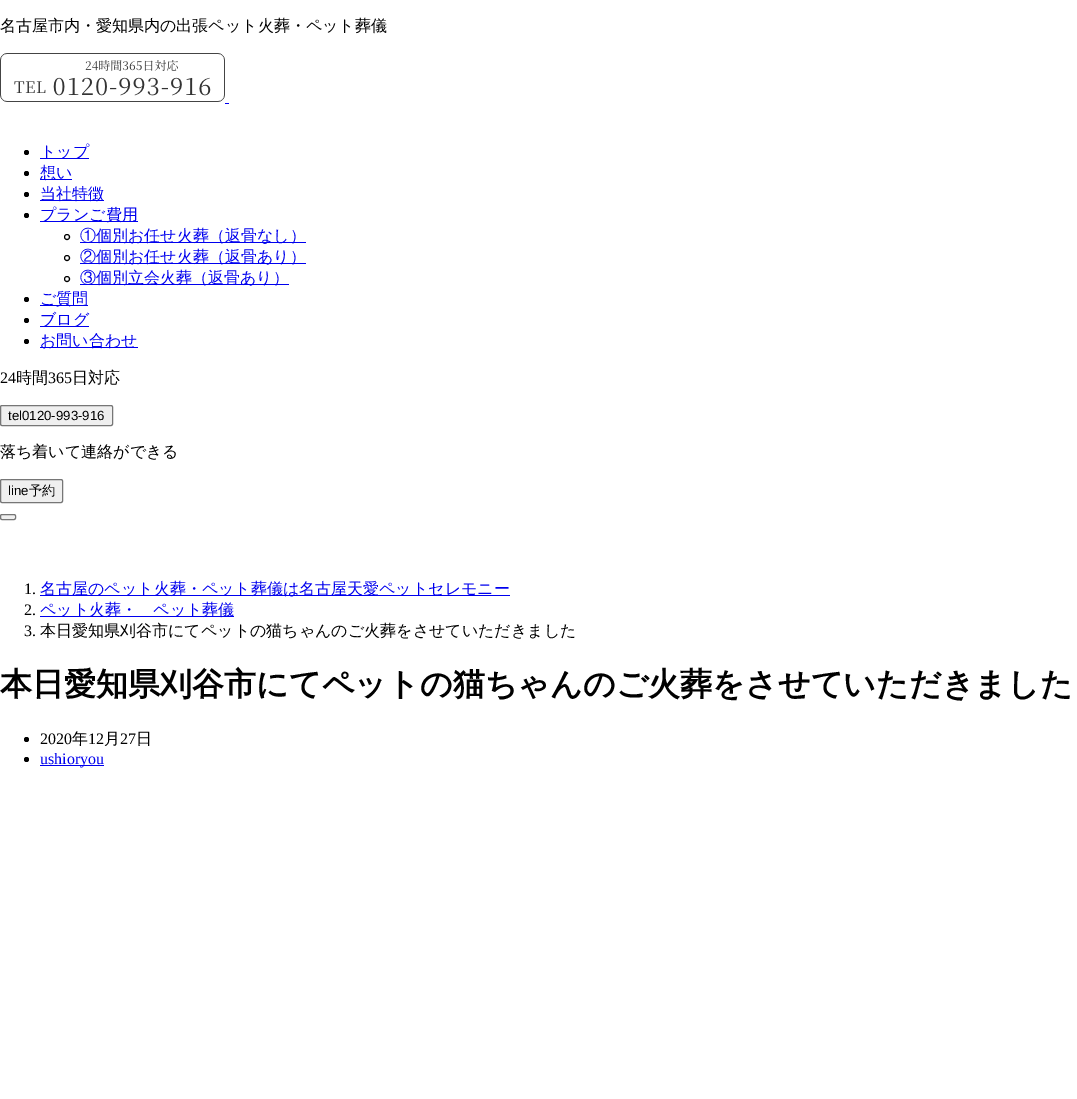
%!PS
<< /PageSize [1077 1099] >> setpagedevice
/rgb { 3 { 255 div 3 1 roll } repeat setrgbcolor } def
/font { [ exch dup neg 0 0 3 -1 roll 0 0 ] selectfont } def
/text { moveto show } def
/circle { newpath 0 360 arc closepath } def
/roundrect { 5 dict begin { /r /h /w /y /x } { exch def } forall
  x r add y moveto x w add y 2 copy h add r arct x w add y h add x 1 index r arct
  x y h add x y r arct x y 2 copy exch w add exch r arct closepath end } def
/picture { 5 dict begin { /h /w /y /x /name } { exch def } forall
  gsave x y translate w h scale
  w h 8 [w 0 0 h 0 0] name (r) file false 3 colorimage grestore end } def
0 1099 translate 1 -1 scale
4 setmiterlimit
255 255 255 rgb
0 0 1077 1099 rectfill
(img_01.rgb) 0 53 225 49 picture
0 0 238 rgb
225 103 4 1 rectfill
0 0 0 rgb
26.5 152.5 2.5 circle fill
0 0 238 rgb
40 158 49 1 rectfill
0 0 0 rgb
26.5 173.5 2.5 circle fill
0 0 238 rgb
40 179 32 1 rectfill
0 0 0 rgb
26.5 194.5 2.5 circle fill
0 0 238 rgb
40 200 64 1 rectfill
0 0 0 rgb
26.5 215.5 2.5 circle fill
0 0 238 rgb
40 221 98 1 rectfill
0 0 0 rgb
67 237 2.5 circle stroke
0 0 238 rgb
80 242 226 1 rectfill
0 0 0 rgb
67 258 2.5 circle stroke
0 0 238 rgb
80 263 226 1 rectfill
0 0 0 rgb
67 279 2.5 circle stroke
0 0 238 rgb
80 284 209 1 rectfill
0 0 0 rgb
26.5 299.5 2.5 circle fill
0 0 238 rgb
40 305 48 1 rectfill
0 0 0 rgb
26.5 320.5 2.5 circle fill
0 0 238 rgb
40 326 49 1 rectfill
0 0 0 rgb
26.5 341.5 2.5 circle fill
0 0 238 rgb
40 347 98 1 rectfill
239 239 239 rgb
0.5 405.5 112 20 1.5 roundrect gsave fill grestore
118 118 118 rgb
stroke
239 239 239 rgb
0.5 479.5 62 23 1.5 roundrect gsave fill grestore
118 118 118 rgb
stroke
239 239 239 rgb
0.5 514.5 15 5 1.5 roundrect gsave fill grestore
118 118 118 rgb
stroke
0 0 238 rgb
40 595 470 1 rectfill
40 616 194 1 rectfill
0 0 0 rgb
26.5 739.5 2.5 circle fill
26.5 759.5 2.5 circle fill
0 0 238 rgb
40 765 64 1 rectfill
/WenQuanYiZenHei-Medium 16 font
0 0 0 rgb
(名古屋市内・愛知県内の出張ペット火葬・ペット葬儀) 0 31 text
0 0 238 rgb
(トップ) 40 157 text
(想い) 40 178 text
(当社特徴) 40 199 text
(プランご費用) 40 220 text
(①個別お任せ火葬（返骨なし）) 80 241 text
(②個別お任せ火葬（返骨あり）) 80 262 text
(③個別立会火葬（返骨あり）) 80 283 text
(ご質問) 40 304 text
(ブログ) 40 325 text
(お問い合わせ) 40 346 text
/LiberationSerif-Regular 16 font
0 0 0 rgb
(24) 0 383 text
/WenQuanYiZenHei-Medium 16 font
(時間) 16 383 text
/LiberationSerif-Regular 16 font
(365) 48 383 text
/WenQuanYiZenHei-Medium 16 font
(日対応) 72 383 text
/LiberationSans-Regular 13.25 font
(tel0120-993-916) 8 420 text
/WenQuanYiZenHei-Medium 16 font
(落ち着いて連絡ができる) 0 457 text
/LiberationSans-Regular 13.25 font
(line) 8 495 text
/WenQuanYiZenHei-Medium 13.25 font
(予約) 29 495 text
/LiberationSerif-Regular 16 font
(1.) 24 594 text
/WenQuanYiZenHei-Medium 16 font
0 0 238 rgb
(名古屋のペット火葬・ペット葬儀は名古屋天愛ペットセレモニー) 40 594 text
/LiberationSerif-Regular 16 font
0 0 0 rgb
(2.) 24 615 text
/WenQuanYiZenHei-Medium 16 font
0 0 238 rgb
(ペット火葬・　ペット葬儀) 40 615 text
/LiberationSerif-Regular 16 font
0 0 0 rgb
(3.) 24 636 text
/WenQuanYiZenHei-Medium 16 font
(本日愛知県刈谷市にてペットの猫ちゃんのご火葬をさせていただきました) 40 636 text
/WenQuanYiZenHei-Bold 32 font
(本日愛知県刈谷市にてペットの猫ちゃんのご火葬をさせていただきました) 0 695 text
/LiberationSerif-Regular 16 font
(2020) 40 744 text
/WenQuanYiZenHei-Medium 16 font
(年) 72 744 text
/LiberationSerif-Regular 16 font
(12) 88 744 text
/WenQuanYiZenHei-Medium 16 font
(月) 104 744 text
/LiberationSerif-Regular 16 font
(27) 120 744 text
/WenQuanYiZenHei-Medium 16 font
(日) 136 744 text
/LiberationSerif-Regular 16 font
0 0 238 rgb
(ushioryou) 40 764 text
showpage
